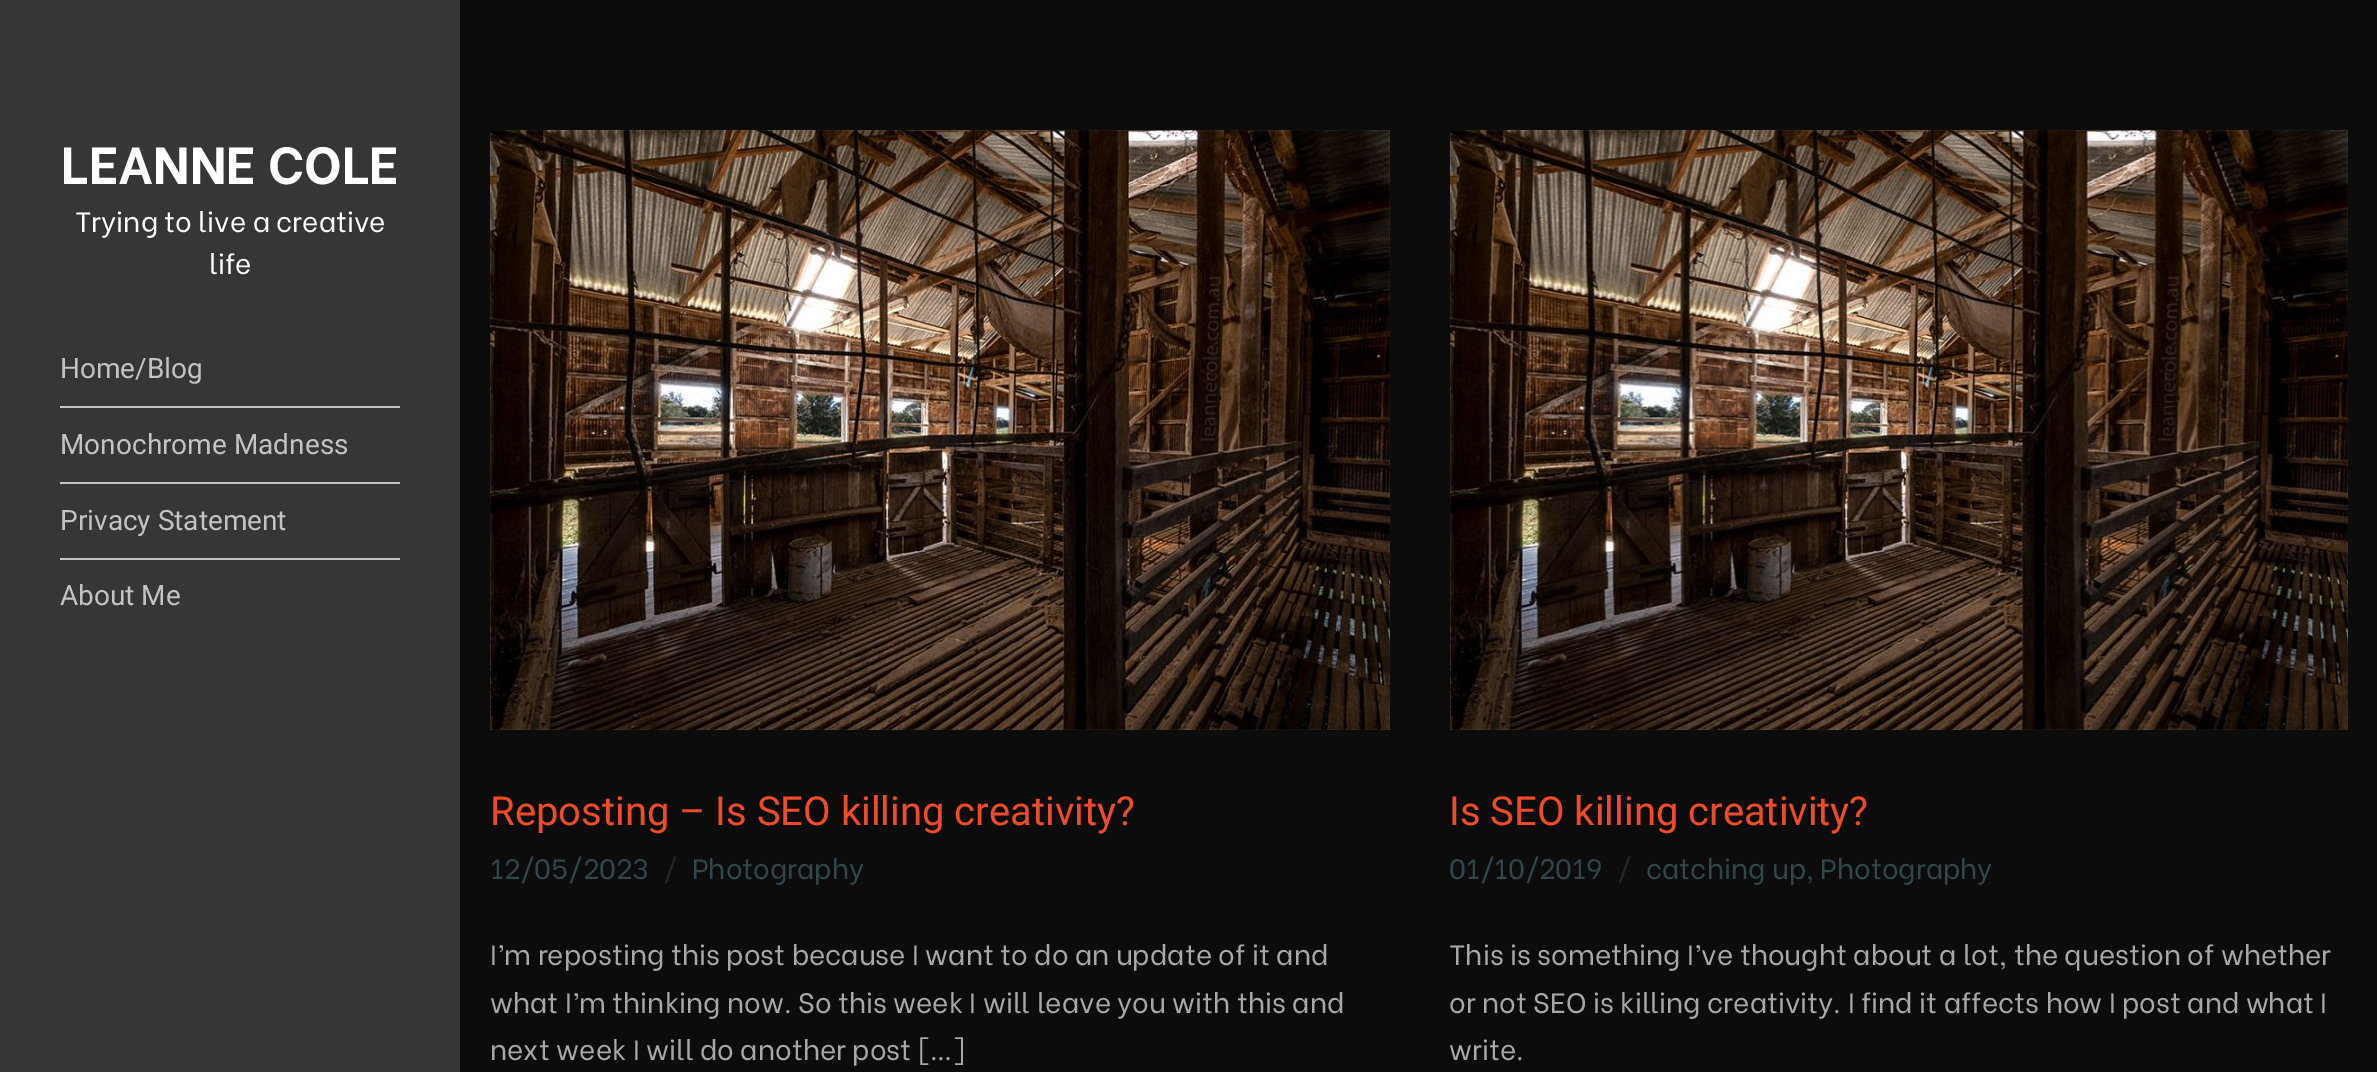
%!PS
<< /PageSize [2377 1072] >> setpagedevice
/rgb { 3 { 255 div 3 1 roll } repeat setrgbcolor } def
/font { [ exch dup neg 0 0 3 -1 roll 0 0 ] selectfont } def
/text { moveto show } def
/picture { 5 dict begin { /h /w /y /x /name } { exch def } forall
  gsave x y translate w h scale
  w h 8 [w 0 0 h 0 0] name (r) file false 3 colorimage grestore end } def
0 1072 translate 1 -1 scale
4 setmiterlimit
12 12 12 rgb
0 0 2377 1072 rectfill
54 54 54 rgb
0 0 460 1072 rectfill
195 195 195 rgb
60 406 340 2 rectfill
60 482 340 2 rectfill
60 558 340 2 rectfill
(img_01.rgb) 490 130 900 600 picture
(img_02.rgb) 1450 130 898 600 picture
/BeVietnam-Bold 52 font
255 255 255 rgb
(LEANNE COLE) 61 184 text
/BeVietnam-Regular 28 font
(Trying to live a creative) 75 232 text
(life) 209 274 text
/Roboto-Regular 28 font
195 195 195 rgb
(Home/Blog) 60 378 text
(Monochrome Madness) 60 454 text
(Privacy Statement) 60 530 text
(About Me) 60 605 text
/Roboto-Regular 40 font
238 75 43 rgb
(Reposting – Is SEO killing creativity?) 490 825 text
/BeVietnam-Regular 28 font
49 71 76 rgb
(12/05/2023) 490 879 text
30 41 44 rgb
(/) 663 879 text
49 71 76 rgb
(Photography) 692 879 text
168 168 168 rgb
(I’m reposting this post because I want to do an update of it and) 490 965 text
(what I’m thinking now. So this week I will leave you with this and) 490 1013 text
(next week I will do another post […]) 490 1060 text
/Roboto-Regular 40 font
238 75 43 rgb
(Is SEO killing creativity?) 1449 825 text
/BeVietnam-Regular 28 font
49 71 76 rgb
(01/10/2019) 1449 879 text
30 41 44 rgb
(/) 1617 879 text
49 71 76 rgb
(catching up, Photography) 1646 879 text
168 168 168 rgb
(This is something I’ve thought about a lot, the question of whether) 1449 965 text
(or not SEO is killing creativity. I find it affects how I post and what I) 1449 1013 text
(write.) 1449 1060 text
showpage
